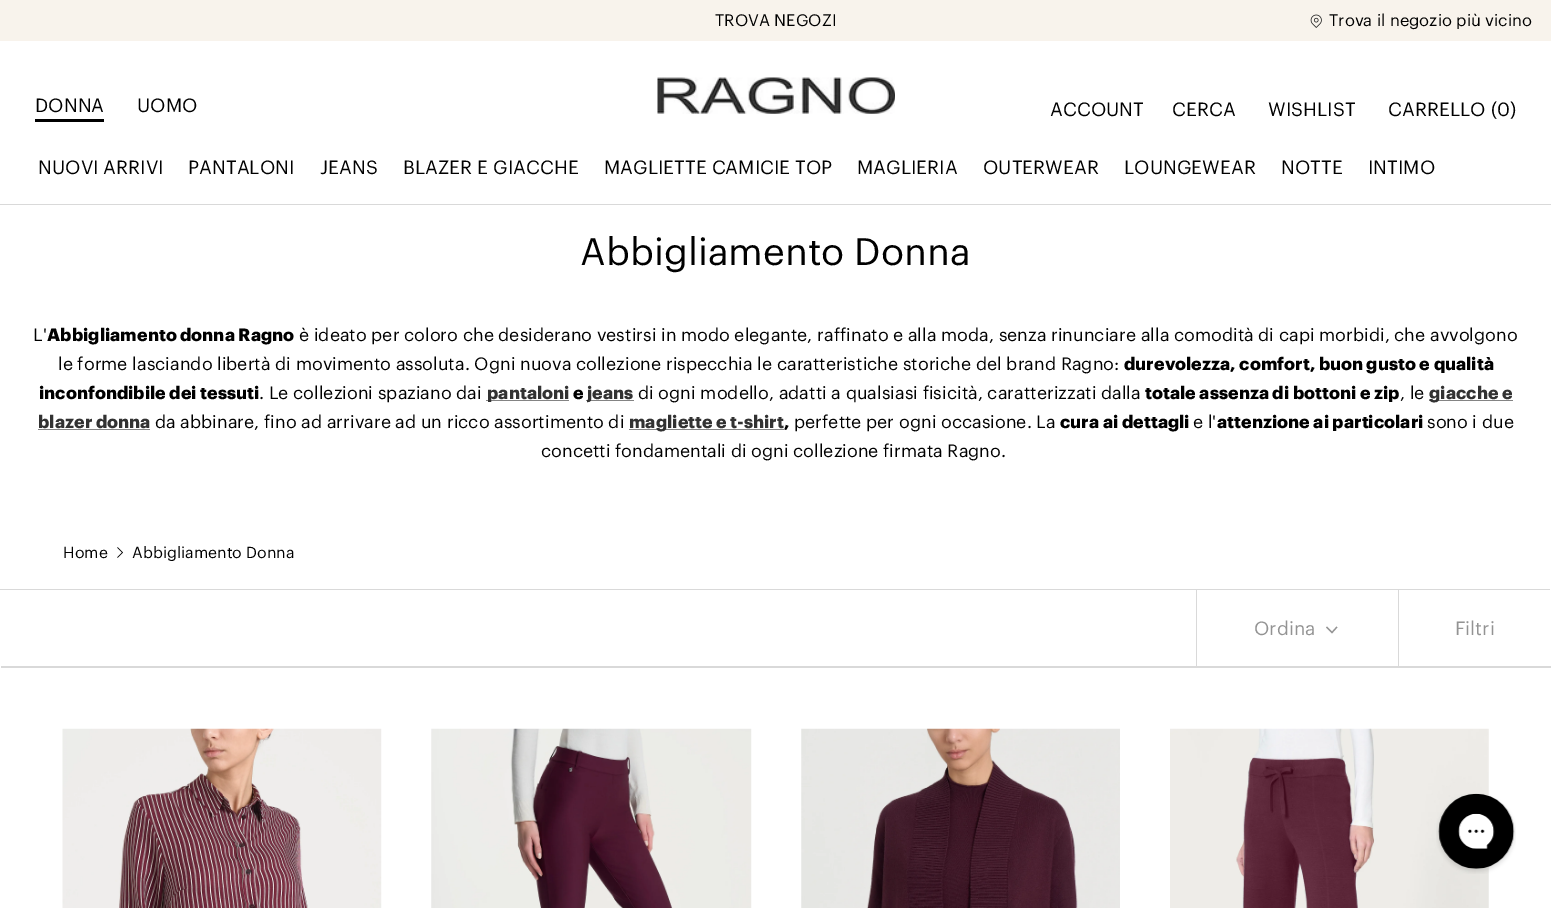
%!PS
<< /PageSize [1551 908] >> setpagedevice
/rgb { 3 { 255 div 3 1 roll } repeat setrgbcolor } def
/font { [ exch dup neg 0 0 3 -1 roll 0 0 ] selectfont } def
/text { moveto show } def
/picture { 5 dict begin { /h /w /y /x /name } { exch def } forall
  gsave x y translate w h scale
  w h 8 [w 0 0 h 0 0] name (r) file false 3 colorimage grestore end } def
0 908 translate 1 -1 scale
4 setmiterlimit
255 255 255 rgb
0 0 1551 908 rectfill
248 243 236 rgb
0 0 1551 41 rectfill
(img_01.rgb) 1310 14 12 14 picture
(img_02.rgb) 657 77 238 37 picture
0 0 0 rgb
35 119 69 3 rectfill
217 217 217 rgb
0 204 1551 1 rectfill
132 132 132 rgb
486 400 83 1 rectfill
586 400 48 1 rectfill
1429 400 84 1 rectfill
38 429 112 1 rectfill
629 429 155 1 rectfill
0 0 0 rgb
0.6 setlinewidth
117.5 547.5 moveto 5 5 rlineto -5 5 rlineto stroke
217 217 217 rgb
-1 589 moveto 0 76 rlineto 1 0 rlineto 0 -75 rlineto 1550 0 rlineto 0 -1 rlineto closepath fill
1 666 moveto 0 2 rlineto 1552 0 rlineto 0 -77 rlineto -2 0 rlineto 0 75 rlineto closepath fill
1196 590 1 76 rectfill
147 147 147 rgb
1.2 setlinewidth
2 setlinecap
1336.5 627.5 moveto -4.5 5 rlineto -5 -5 rlineto stroke
217 217 217 rgb
1398 590 1 76 rectfill
(img_03.rgb) 62 728 320 180 picture
(img_04.rgb) 431 728 321 180 picture
(img_05.rgb) 801 728 319 180 picture
(img_06.rgb) 1170 728 319 180 picture
(img_07.rgb) 1436 793 80 81 picture
/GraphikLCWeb-Regular 16.25 font
0 0 0 rgb
(TROVA NEGOZI) 715 26 text
(Trova il negozio più vicino) 1329 26 text
/GraphikLCWeb-Regular 18.75 font
(DONNA) 35 112 text
(UOMO) 137 112 text
(NUOVI ARRIVI) 38 174 text
(PANTALONI) 188 174 text
(JEANS) 320 174 text
(BLAZER E GIACCHE) 403 174 text
(MAGLIETTE CAMICIE TOP) 604 174 text
(MAGLIERIA) 857 174 text
(OUTERWEAR) 983 174 text
(LOUNGEWEAR) 1124 174 text
(NOTTE) 1281 174 text
(INTIMO) 1368 174 text
(ACCOUNT) 1050 116 text
(CERCA) 1172 116 text
(WISHLIST) 1268 116 text
(CARRELLO \(0\)) 1388 116 text
/GraphikLCWeb-Regular 37.5 font
(Abbigliamento Donna) 580 265 text
/GraphikLCWeb-Regular 17.5 font
(L') 33 341 text
/GraphikLCWeb-Bold 17.5 font
(Abbigliamento donna Ragno) 47 341 text
/GraphikLCWeb-Regular 17.5 font
(è ideato per coloro che desiderano vestirsi in modo elegante, raffinato e alla moda, senza rinunciare alla comodità di capi morbidi, che avvolgono) 299 341 text
(le forme lasciando libertà di movimento assoluta. Ogni nuova collezione rispecchia le caratteristiche storiche del brand Ragno:) 58 370 text
/GraphikLCWeb-Bold 17.5 font
(durevolezza, comfort, buon gusto e qualità) 1124 370 text
(inconfondibile dei tessuti) 39 399 text
/GraphikLCWeb-Regular 17.5 font
(. Le collezioni spaziano dai) 259 399 text
/GraphikLCWeb-Bold 17.5 font
50 50 50 rgb
(pantaloni) 487 399 text
0 0 0 rgb
(e) 573 399 text
50 50 50 rgb
(jeans) 587 399 text
/GraphikLCWeb-Regular 17.5 font
0 0 0 rgb
(di ogni modello, adatti a qualsiasi fisicità, caratterizzati dalla) 638 399 text
/GraphikLCWeb-Bold 17.5 font
(totale assenza di bottoni e zip) 1145 399 text
/GraphikLCWeb-Regular 17.5 font
(, le) 1400 399 text
/GraphikLCWeb-Bold 17.5 font
50 50 50 rgb
(giacche e) 1429 399 text
(blazer donna) 38 428 text
/GraphikLCWeb-Regular 17.5 font
0 0 0 rgb
(da abbinare, fino ad arrivare ad un ricco assortimento di) 155 428 text
/GraphikLCWeb-Bold 17.5 font
50 50 50 rgb
(magliette e t-shirt) 629 428 text
0 0 0 rgb
(,) 784 428 text
/GraphikLCWeb-Regular 17.5 font
(perfette per ogni occasione. La) 794 428 text
/GraphikLCWeb-Bold 17.5 font
(cura ai dettagli) 1060 428 text
/GraphikLCWeb-Regular 17.5 font
(e l') 1193 428 text
/GraphikLCWeb-Bold 17.5 font
(attenzione ai particolari) 1217 428 text
/GraphikLCWeb-Regular 17.5 font
(sono i due) 1427 428 text
(concetti fondamentali di ogni collezione firmata Ragno.) 541 457 text
/GraphikLCWeb-Regular 15.6 font
(Home) 63 558 text
(Abbigliamento Donna) 132 558 text
/GraphikLCWeb-Regular 18.75 font
147 147 147 rgb
(Ordina) 1254 635 text
(Filtri) 1455 635 text
showpage
